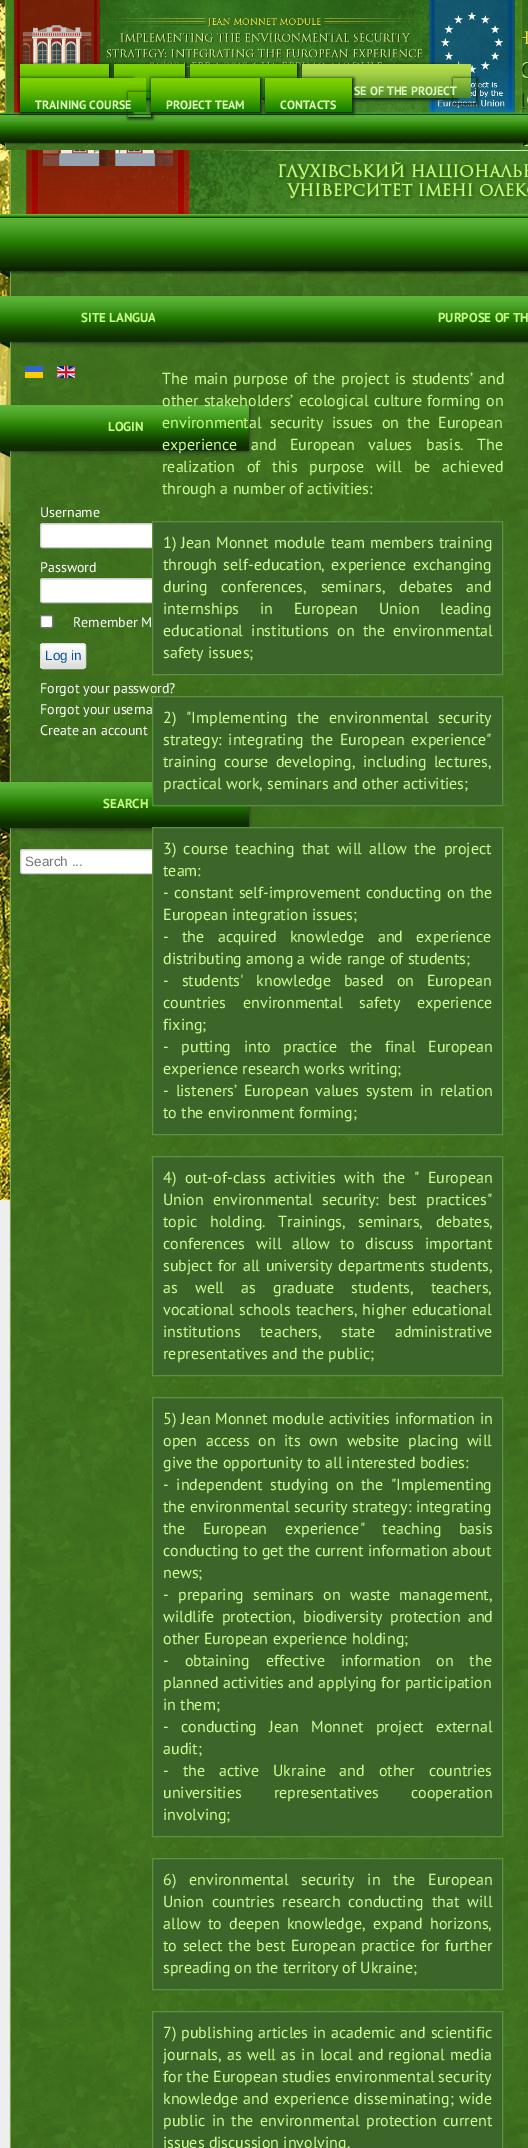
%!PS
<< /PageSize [528 2148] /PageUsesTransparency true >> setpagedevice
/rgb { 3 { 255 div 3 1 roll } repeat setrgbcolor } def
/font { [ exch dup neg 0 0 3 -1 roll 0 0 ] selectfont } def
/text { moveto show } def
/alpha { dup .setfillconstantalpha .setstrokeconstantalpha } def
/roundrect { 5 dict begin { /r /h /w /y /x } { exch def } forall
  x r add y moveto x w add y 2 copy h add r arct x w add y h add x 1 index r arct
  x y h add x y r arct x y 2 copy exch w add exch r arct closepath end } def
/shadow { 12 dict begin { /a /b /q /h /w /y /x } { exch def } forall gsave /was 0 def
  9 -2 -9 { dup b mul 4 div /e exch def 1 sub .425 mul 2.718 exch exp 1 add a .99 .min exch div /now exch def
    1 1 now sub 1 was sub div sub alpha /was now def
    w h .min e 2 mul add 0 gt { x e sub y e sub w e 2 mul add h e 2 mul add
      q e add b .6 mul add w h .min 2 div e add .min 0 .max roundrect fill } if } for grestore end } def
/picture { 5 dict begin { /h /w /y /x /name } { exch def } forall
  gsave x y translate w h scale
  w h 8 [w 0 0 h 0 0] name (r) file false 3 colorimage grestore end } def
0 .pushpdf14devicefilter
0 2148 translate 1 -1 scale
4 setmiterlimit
238 238 238 rgb
0 0 528 2148 rectfill
(img_01.rgb) 0 0 10 1200 picture
(img_02.rgb) 0 0 528 285 picture
(img_03.rgb) 0 0 528 150 picture
18 40 21 rgb
20 64 91 36 0 1.5 1 shadow
(img_04.rgb) 20 64 89 14 picture
114 64 73 36 0 1.5 1 shadow
(img_05.rgb) 114 64 71 34 picture
190 64 109 36 0 1.5 1 shadow
(img_06.rgb) 190 64 107 34 picture
302 64 156 36 0 1.5 1 shadow
(img_07.rgb) 302 64 169 34 picture
gsave
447 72 moveto 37 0 rlineto 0 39 rlineto -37 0 rlineto closepath 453 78 moveto 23 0 rlineto 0 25 rlineto -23 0 rlineto closepath eoclip newpath
453 78 25 27 0 1.5 1 shadow
grestore
20 78 113 36 0 1.5 1 shadow
(img_08.rgb) 20 78 126 34 picture
gsave
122 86 moveto 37 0 rlineto 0 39 rlineto -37 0 rlineto closepath 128 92 moveto 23 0 rlineto 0 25 rlineto -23 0 rlineto closepath eoclip newpath
128 92 25 27 0 1.5 1 shadow
grestore
151 78 111 36 0 1.5 1 shadow
(img_09.rgb) 151 78 109 34 picture
265 78 89 36 0 1.5 1 shadow
(img_10.rgb) 265 78 87 34 picture
(img_11.rgb) 9 285 519 1863 picture
(img_12.rgb) 0 295 252 53 picture
(img_13.rgb) 25 366 18 12 picture
(img_14.rgb) 57 366 18 12 picture
(img_15.rgb) 0 404 252 53 picture
255 255 255 rgb
40 523 171 25 3 roundrect fill
236 236 236 rgb
43 525 moveto 165 0 rlineto 1 0 2 1 2 2 rcurveto 0 -1 0 -3 -2 -3 rcurveto -165 0 rlineto -2 0 -2 2 -2 3 rcurveto 0 -1 1 -2 2 -2 rcurveto closepath fill
204 204 204 rgb
40.5 523.5 170 24 2.5 roundrect stroke
255 255 255 rgb
40 578 171 25 3 roundrect fill
236 236 236 rgb
43 580 moveto 165 0 rlineto 1 0 2 1 2 2 rcurveto 0 -1 0 -3 -2 -3 rcurveto -165 0 rlineto -2 0 -2 2 -2 3 rcurveto 0 -1 1 -2 2 -2 rcurveto closepath fill
204 204 204 rgb
40.5 578.5 170 24 2.5 roundrect stroke
255 255 255 rgb
40.5 615.5 12 12 1.5 roundrect gsave fill grestore
118 118 118 rgb
stroke
gsave
40 643 46 26 3 roundrect clip newpath
gsave 40 644 moveto 46 0 rlineto 0 24 rlineto -46 0 rlineto closepath clip newpath
<< /ShadingType 2 /ColorSpace /DeviceRGB /Coords [63 644 63 668] /Extend [true true] /Function << /FunctionType 2 /Domain [0 1] /C0 [1 1 1] /C1 [0.867 0.867 0.867] /N 1 >> >> shfill grestore
grestore
254 254 254 rgb
43 645 moveto 40 0 rlineto 1 0 2 1 2 2 rcurveto 0 -5 -5 -3 -9 -3 rcurveto -26 0 rlineto -4 0 -9 -2 -9 3 rcurveto 0 -1 1 -2 2 -2 rcurveto closepath fill
221 221 221 rgb
40.5 643.5 45 25 2.5 roundrect stroke
(img_16.rgb) 0 781 252 53 picture
255 255 255 rgb
20 849 187 25 3 roundrect fill
236 236 236 rgb
23 851 moveto 181 0 rlineto 1 0 2 1 2 2 rcurveto 0 -1 rlineto 0 -1 -1 -2 -2 -2 rcurveto -181 0 rlineto -1 0 -2 1 -2 2 rcurveto 0 1 rlineto 0 -1 1 -2 2 -2 rcurveto closepath fill
204 204 204 rgb
20.5 849.5 186 24 2.5 roundrect stroke
60 102 41 rgb
152.5 521.5 moveto 350 0 rlineto 0 153 rlineto -350 0 rlineto closepath gsave fill grestore
90 146 65 rgb
stroke
60 102 41 rgb
152.5 827.5 moveto 350 0 rlineto 0 307 rlineto -350 0 rlineto closepath gsave fill grestore
90 146 65 rgb
stroke
60 102 41 rgb
152.5 1156.5 moveto 350 0 rlineto 0 219 rlineto -350 0 rlineto closepath gsave fill grestore
90 146 65 rgb
stroke
60 102 41 rgb
152.5 1397.5 moveto 350 0 rlineto 0 439 rlineto -350 0 rlineto closepath gsave fill grestore
90 146 65 rgb
stroke
60 102 41 rgb
152.5 1858.5 moveto 350 0 rlineto 0 131 rlineto -350 0 rlineto closepath gsave fill grestore
90 146 65 rgb
stroke
60 102 41 rgb
152.5 2011.5 moveto 350 0 rlineto 0 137 rlineto -350 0 rlineto closepath gsave fill grestore
90 146 65 rgb
stroke
/PTSans-Bold 12 font
223 251 190 rgb
(SE OF THE PROJECT) 354 95 text
(TRAINING COURSE) 35 109 text
(PROJECT TEAM) 166 109 text
(CONTACTS) 280 109 text
/PTSans-Bold 13 font
199 254 134 rgb
(SITE LANGUA) 81 322 text
(LOGIN) 108 431 text
/PTSans-Regular 14 font
255 255 255 rgb
(Username) 40 517 text
(Password) 40 572 text
(Remember M) 73 627 text
/LiberationSans-Regular 13.5 font
9 81 151 rgb
(Log in) 45 660 text
/PTSans-Regular 14 font
255 255 255 rgb
(Forgot your password?) 40 693 text
(Forgot your userna) 40 714 text
(Create an account) 40 735 text
/PTSans-Bold 13 font
199 254 134 rgb
(SEARCH) 103 808 text
/LiberationSans-Regular 13.5 font
117 117 117 rgb
(Search ...) 25 866 text
(img_17.rgb) 155 295 373 50 picture
/PTSans-Bold 13 font
199 254 134 rgb
(PURPOSE OF TH) 438 322 text
/PTSans-Regular 16 font
205 253 146 rgb
162 384 moveto 1.5 0 32 (The main purpose of the project is students’ and) widthshow
162 406 moveto 1 0 32 (other stakeholders’ ecological culture forming on) widthshow
162 428 moveto 4.25 0 32 (environmental security issues on the European) widthshow
162 450 moveto 9.5 0 32 (experience and European values basis. The) widthshow
162 472 moveto 7.75 0 32 (realization of this purpose will be achieved) widthshow
(through a number of activities:) 162 494 text
163 548 moveto 1 0 32 (1\) Jean Monnet module team members training) widthshow
163 570 moveto 2 0 32 (through self-education, experience exchanging) widthshow
163 592 moveto 9.5 0 32 (during conferences, seminars, debates and) widthshow
163 614 moveto 16.5 0 32 (internships in European Union leading) widthshow
163 636 moveto 4 0 32 (educational institutions on the environmental) widthshow
(safety issues;) 163 658 text
60 102 41 rgb
152.5 696.5 moveto 350 0 rlineto 0 109 rlineto -350 0 rlineto closepath gsave fill grestore
90 146 65 rgb
stroke
205 253 146 rgb
163 723 moveto 5.5 0 32 (2\) "Implementing the environmental security) widthshow
163 745 moveto 2.5 0 32 (strategy: integrating the European experience") widthshow
163 767 moveto 3 0 32 (training course developing, including lectures,) widthshow
(practical work, seminars and other activities;) 163 789 text
163 854 moveto 3 0 32 (3\) course teaching that will allow the project) widthshow
(team:) 163 876 text
163 898 moveto 1.25 0 32 (- constant self-improvement conducting on the) widthshow
(European integration issues;) 163 920 text
163 942 moveto 9 0 32 (- the acquired knowledge and experience) widthshow
(distributing among a wide range of students;) 163 964 text
163 986 moveto 8.5 0 32 (- students' knowledge based on European) widthshow
163 1008 moveto 12.5 0 32 (countries environmental safety experience) widthshow
(fixing;) 163 1030 text
163 1052 moveto 8.25 0 32 (- putting into practice the final European) widthshow
(experience research works writing;) 163 1074 text
163 1096 moveto 2.5 0 32 (- listeners’ European values system in relation) widthshow
(to the environment forming;) 163 1118 text
163 1183 moveto 4.25 0 32 (4\) out-of-class activities with the " European) widthshow
163 1205 moveto 5 0 32 (Union environmental security: best practices") widthshow
163 1227 moveto 8.5 0 32 (topic holding. Trainings, seminars, debates,) widthshow
163 1249 moveto 6.5 0 32 (conferences will allow to discuss important) widthshow
163 1271 moveto 1.5 0 32 (subject for all university departments students,) widthshow
163 1293 moveto 13 0 32 (as well as graduate students, teachers,) widthshow
163 1315 moveto 1 0 32 (vocational schools teachers, higher educational) widthshow
163 1337 moveto 15.5 0 32 (institutions teachers, state administrative) widthshow
(representatives and the public;) 163 1359 text
163 1424 moveto 0.5 0 32 (5\) Jean Monnet module activities information in) widthshow
163 1446 moveto 4.25 0 32 (open access on its own website placing will) widthshow
(give the opportunity to all interested bodies:) 163 1468 text
163 1490 moveto 3.25 0 32 (- independent studying on the "Implementing) widthshow
163 1512 moveto 0.5 0 32 (the environmental security strategy: integrating) widthshow
163 1534 moveto 13 0 32 (the European experience" teaching basis) widthshow
(conducting to get the current information about) 163 1556 text
(news;) 163 1578 text
163 1600 moveto 5 0 32 (- preparing seminars on waste management,) widthshow
163 1622 moveto 3 0 32 (wildlife protection, biodiversity protection and) widthshow
(other European experience holding;) 163 1644 text
163 1666 moveto 11.5 0 32 (- obtaining effective information on the) widthshow
(planned activities and applying for participation) 163 1688 text
(in them;) 163 1710 text
163 1732 moveto 8 0 32 (- conducting Jean Monnet project external) widthshow
(audit;) 163 1754 text
163 1776 moveto 9.5 0 32 (- the active Ukraine and other countries) widthshow
163 1798 moveto 28 0 32 (universities representatives cooperation) widthshow
(involving;) 163 1820 text
163 1885 moveto 8.5 0 32 (6\) environmental security in the European) widthshow
163 1907 moveto 3.5 0 32 (Union countries research conducting that will) widthshow
163 1929 moveto 3 0 32 (allow to deepen knowledge, expand horizons,) widthshow
163 1951 moveto 1.25 0 32 (to select the best European practice for further) widthshow
(spreading on the territory of Ukraine;) 163 1973 text
163 2038 moveto 0.75 0 32 (7\) publishing articles in academic and scientific) widthshow
163 2060 moveto 1 0 32 (journals, as well as in local and regional media) widthshow
(for the European studies environmental security) 163 2082 text
163 2104 moveto 1 0 32 (knowledge and experience disseminating; wide) widthshow
163 2126 moveto 2.25 0 32 (public in the environmental protection current) widthshow
(issues discussion involving.) 163 2148 text
.poppdf14devicefilter showpage
